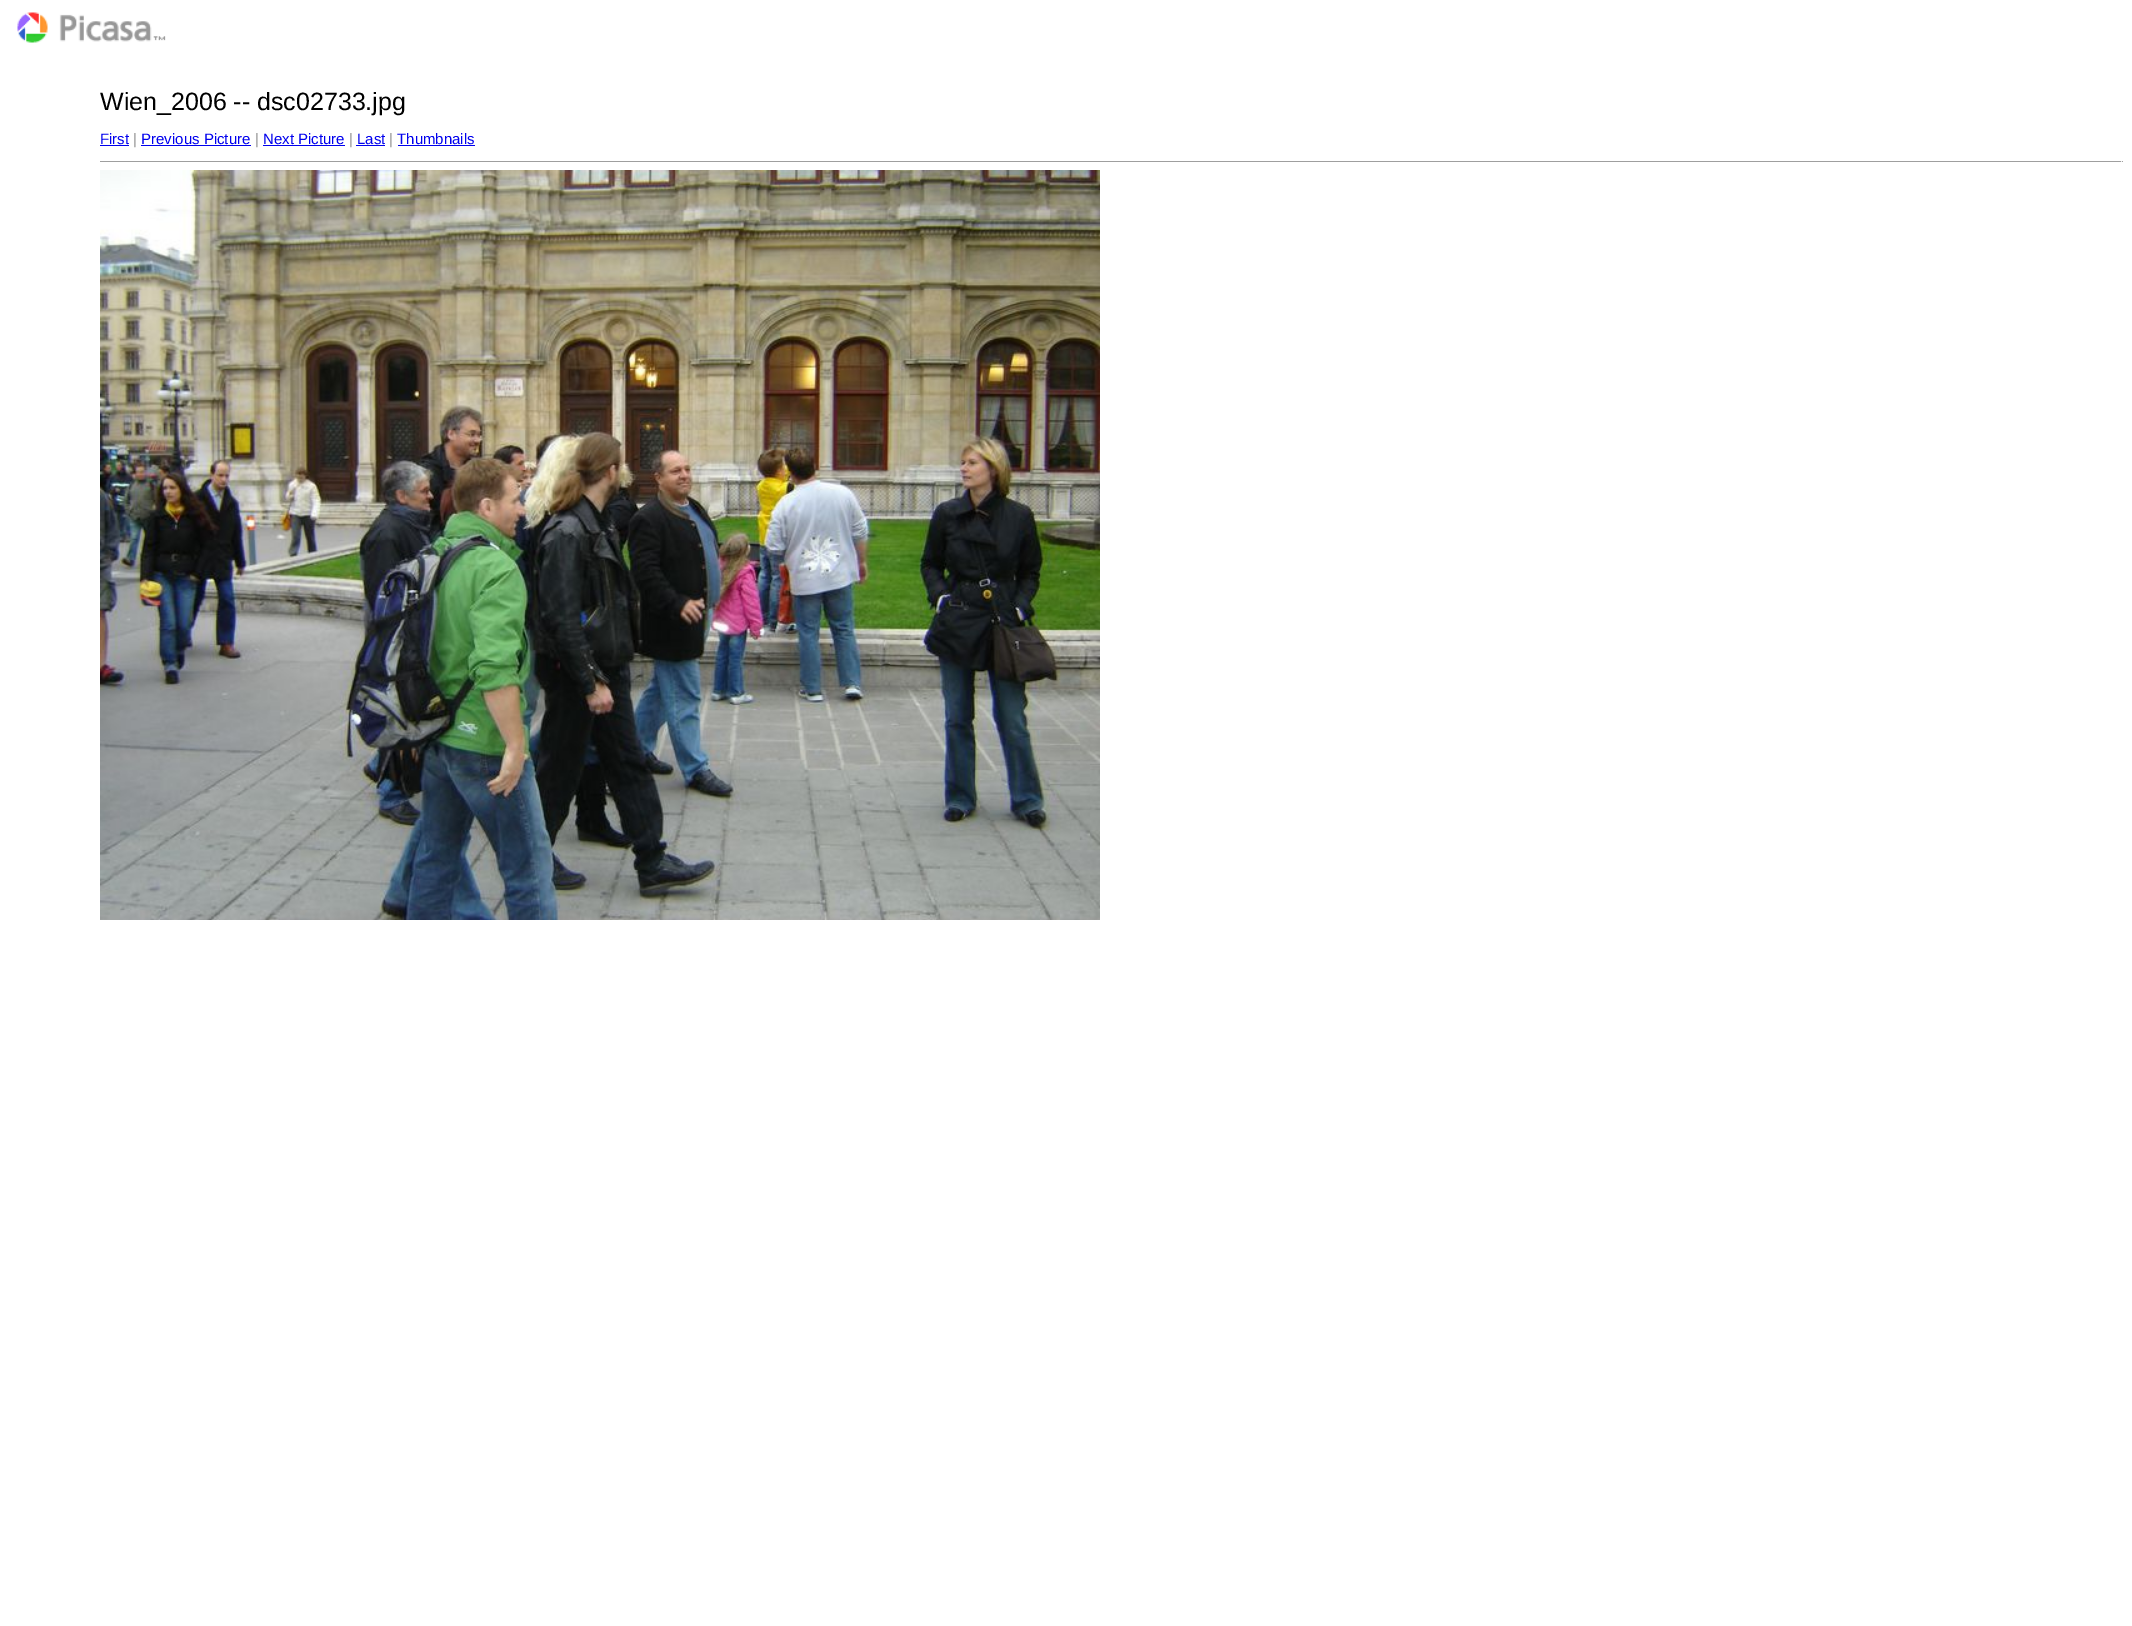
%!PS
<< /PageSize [2132 1626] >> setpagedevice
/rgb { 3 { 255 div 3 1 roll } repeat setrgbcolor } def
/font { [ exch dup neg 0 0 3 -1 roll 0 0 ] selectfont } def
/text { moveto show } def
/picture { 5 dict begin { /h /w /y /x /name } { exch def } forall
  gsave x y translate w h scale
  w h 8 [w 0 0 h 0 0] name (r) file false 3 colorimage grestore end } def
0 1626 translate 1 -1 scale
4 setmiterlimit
255 255 255 rgb
0 0 2132 1626 rectfill
(img_01.rgb) 17 12 149 31 picture
0 0 238 rgb
100 145 29 1 rectfill
141 145 110 1 rectfill
263 145 82 1 rectfill
356 145 29 1 rectfill
398 145 77 1 rectfill
159 159 159 rgb
100 161 2023 1 rectfill
238 238 238 rgb
2121 161 1 1 rectfill
(img_02.rgb) 100 170 1000 750 picture
/LiberationSans-Regular 25 font
0 0 0 rgb
(Wien_2006 -- dsc02733.jpg) 100 110 text
/LiberationSans-Regular 15 font
0 0 238 rgb
(First) 100 144 text
151 151 151 rgb
(|) 133 144 text
0 0 238 rgb
(Previous Picture) 141 144 text
151 151 151 rgb
(|) 255 144 text
0 0 238 rgb
(Next Picture) 263 144 text
151 151 151 rgb
(|) 349 144 text
0 0 238 rgb
(Last) 357 144 text
151 151 151 rgb
(|) 389 144 text
0 0 238 rgb
(Thumbnails) 397 144 text
showpage
